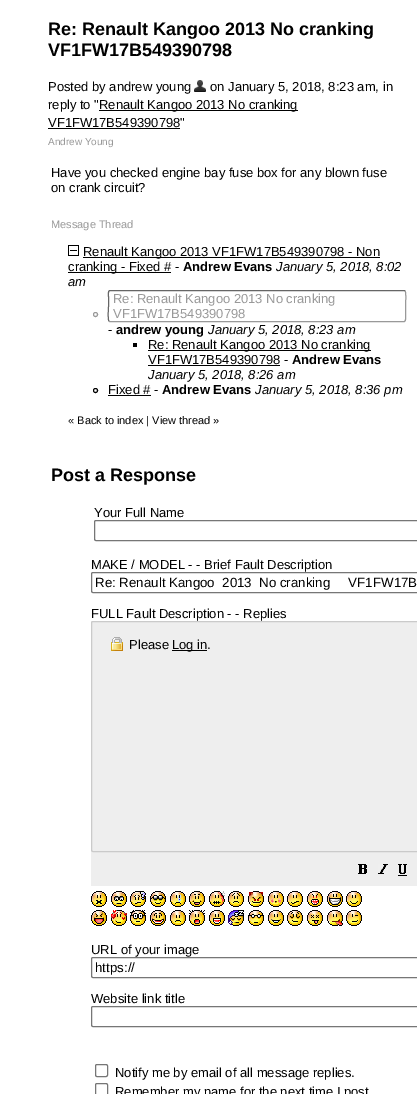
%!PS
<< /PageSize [417 1094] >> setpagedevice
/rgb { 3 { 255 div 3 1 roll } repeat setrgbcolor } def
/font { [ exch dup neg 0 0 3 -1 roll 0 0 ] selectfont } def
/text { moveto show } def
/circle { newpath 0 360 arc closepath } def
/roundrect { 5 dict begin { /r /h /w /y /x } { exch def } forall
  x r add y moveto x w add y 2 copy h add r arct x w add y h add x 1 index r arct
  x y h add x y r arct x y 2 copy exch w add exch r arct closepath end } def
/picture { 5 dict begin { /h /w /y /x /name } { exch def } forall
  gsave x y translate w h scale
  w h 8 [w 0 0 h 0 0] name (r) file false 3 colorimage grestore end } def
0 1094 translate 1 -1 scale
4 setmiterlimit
255 255 255 rgb
0 0 417 1094 rectfill
(img_01.rgb) 194 80 12 12 picture
0 0 0 rgb
99 110 199 1 rectfill
48 128 132 1 rectfill
(img_02.rgb) 68 245 11 11 picture
83 257 297 1 rectfill
68 272 103 1 rectfill
153 153 153 rgb
95.5 314.5 2 circle stroke
405 291 moveto 1.5 1.5 0.5 12.5 0.5 15 rcurveto 0 9.5 rlineto 0 0 1 6 -1.5 6 rcurveto -294.5 0 rlineto -0.5 -0.5 rlineto stroke
102 102 102 rgb
109 321 moveto -1.5 -1.5 -0.5 -12.5 -0.5 -15 rcurveto 0 -9.5 rlineto 0 0 -1 -6 1.5 -6 rcurveto 294.5 0 rlineto 0.5 0.5 rlineto stroke
0 0 0 rgb
133 343 4 4 rectfill
148 350 223 1 rectfill
148 365 132 1 rectfill
95.5 390.5 2 circle stroke
108 395 43 1 rectfill
118 118 118 rgb
94.5 520.5 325 20 1.5 roundrect stroke
91.5 572.5 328 20 1.5 roundrect stroke
238 238 238 rgb
91 621 326 265 rectfill
202 202 202 rgb
91.5 621.5 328 230 1.5 roundrect stroke
(img_03.rgb) 111 637 12 14 picture
0 0 0 rgb
172 650 35 1 rectfill
(img_04.rgb) 358 864 9 10 picture
(img_05.rgb) 378 864 10 10 picture
(img_06.rgb) 398 864 9 12 picture
(img_07.rgb) 91 891 16 16 picture
(img_08.rgb) 111 891 16 16 picture
(img_09.rgb) 130 891 16 16 picture
(img_10.rgb) 150 891 16 16 picture
(img_11.rgb) 170 891 16 16 picture
(img_12.rgb) 189 891 16 16 picture
(img_13.rgb) 209 891 16 16 picture
(img_14.rgb) 228 891 16 16 picture
(img_15.rgb) 248 891 16 16 picture
(img_16.rgb) 268 891 16 16 picture
(img_17.rgb) 287 891 16 16 picture
(img_18.rgb) 307 891 16 16 picture
(img_19.rgb) 327 891 16 16 picture
(img_20.rgb) 346 891 16 16 picture
(img_21.rgb) 91 910 16 16 picture
(img_22.rgb) 111 910 16 16 picture
(img_23.rgb) 130 910 16 16 picture
(img_24.rgb) 150 910 16 16 picture
(img_25.rgb) 170 910 16 16 picture
(img_26.rgb) 189 910 16 16 picture
(img_27.rgb) 209 910 16 16 picture
(img_28.rgb) 228 910 16 16 picture
(img_29.rgb) 248 910 16 16 picture
(img_30.rgb) 268 910 16 16 picture
(img_31.rgb) 287 910 16 16 picture
(img_32.rgb) 307 910 16 16 picture
(img_33.rgb) 327 910 16 16 picture
(img_34.rgb) 346 910 16 16 picture
118 118 118 rgb
91.5 957.5 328 20 1.5 roundrect stroke
91.5 1006.5 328 20 1.5 roundrect stroke
95.5 1064.5 12 12 1.5 roundrect stroke
95.5 1083.5 12 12 1.5 roundrect stroke
/LiberationSans-Bold 18 font
0 0 0 rgb
(Re: Renault Kangoo 2013 No cranking) 48 35 text
(VF1FW17B549390798) 48 56 text
/LiberationSans-Regular 13 font
(Posted by andrew young) 48 91 text
(on January 5, 2018, 8:23 am, in) 210 91 text
(reply to ") 48 109 text
(Renault Kangoo 2013 No cranking) 99 109 text
(VF1FW17B549390798") 48 127 text
/LiberationSans-Regular 10 font
153 153 153 rgb
(Andrew Young) 48 145 text
/LiberationSans-Regular 13 font
0 0 0 rgb
(Have you checked engine bay fuse box for any blown fuse) 51 177 text
(on crank circuit?) 51 192 text
/LiberationSans-Regular 11 font
153 153 153 rgb
(Message Thread) 51 228 text
/LiberationSans-Regular 13 font
0 0 0 rgb
(Renault Kangoo 2013 VF1FW17B549390798 - Non) 83 256 text
(cranking - Fixed # -) 68 271 text
/LiberationSans-Bold 13 font
(Andrew Evans) 183 271 text
/LiberationSans-Italic 13 font
(January 5, 2018, 8:02) 276 271 text
(am) 68 286 text
/LiberationSans-Regular 13 font
153 153 153 rgb
(Re: Renault Kangoo 2013 No cranking) 113 303 text
(VF1FW17B549390798) 113 318 text
0 0 0 rgb
(-) 108 334 text
/LiberationSans-Bold 13 font
(andrew young) 116 334 text
/LiberationSans-Italic 13 font
(January 5, 2018, 8:23 am) 208 334 text
/LiberationSans-Regular 13 font
(Re: Renault Kangoo 2013 No cranking) 148 349 text
(VF1FW17B549390798 -) 148 364 text
/LiberationSans-Bold 13 font
(Andrew Evans) 292 364 text
/LiberationSans-Italic 13 font
(January 5, 2018, 8:26 am) 148 379 text
/LiberationSans-Regular 13 font
(Fixed # -) 108 394 text
/LiberationSans-Bold 13 font
(Andrew Evans) 162 394 text
/LiberationSans-Italic 13 font
(January 5, 2018, 8:36 pm) 255 394 text
/LiberationSans-Regular 11 font
(« Back to index | View thread ») 68 424 text
/LiberationSans-Bold 18 font
(Post a Response) 51 481 text
/LiberationSans-Regular 13 font
(Your Full Name) 94 517 text
(MAKE / MODEL - - Brief Fault Description) 91 569 text
/LiberationSans-Regular 13.3 font
(Re: Renault Kangoo  2013  No cranking     VF1FW17B) 95 587 text
/LiberationSans-Regular 13 font
(FULL Fault Description - - Replies) 91 618 text
(Please) 129 649 text
(Log in.) 172 649 text
(URL of your image) 91 954 text
/LiberationSans-Regular 13.3 font
(https://) 95 972 text
/LiberationSans-Regular 13 font
(Website link title) 91 1003 text
(Notify me by email of all message replies.) 115 1077 text
(Remember my name for the next time I post) 115 1096 text
showpage
